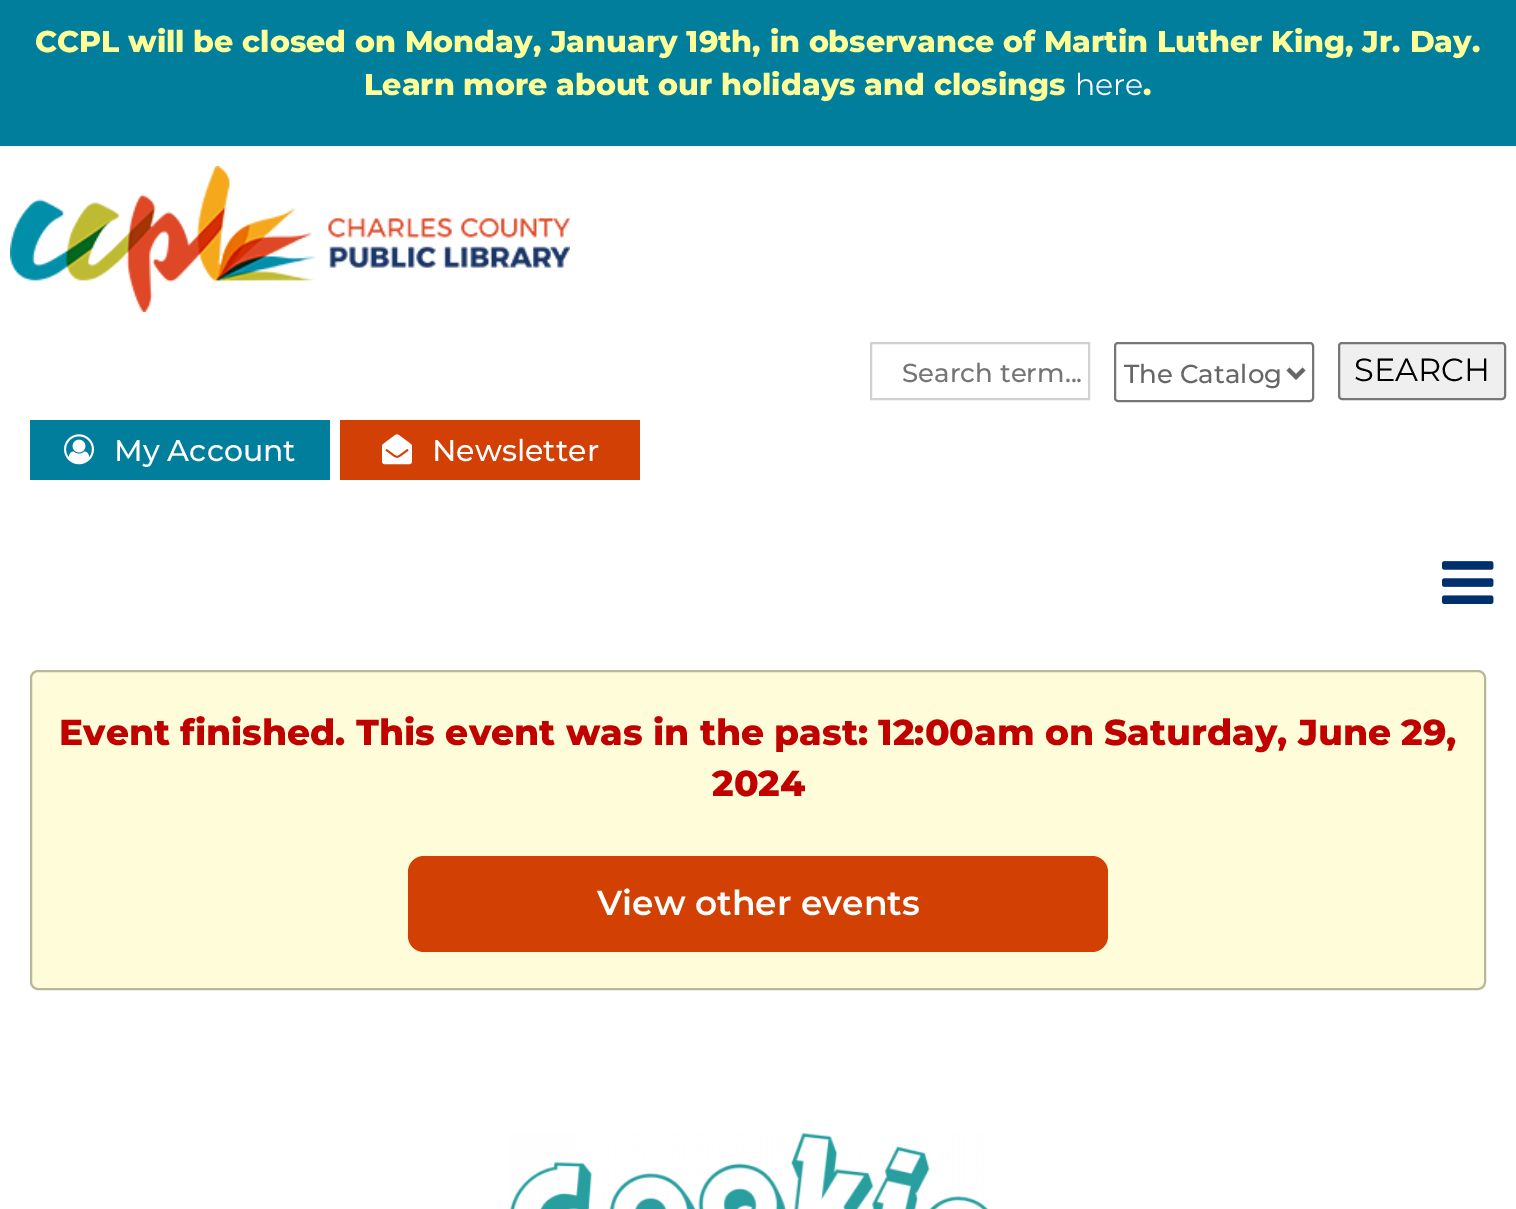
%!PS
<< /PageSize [1516 1209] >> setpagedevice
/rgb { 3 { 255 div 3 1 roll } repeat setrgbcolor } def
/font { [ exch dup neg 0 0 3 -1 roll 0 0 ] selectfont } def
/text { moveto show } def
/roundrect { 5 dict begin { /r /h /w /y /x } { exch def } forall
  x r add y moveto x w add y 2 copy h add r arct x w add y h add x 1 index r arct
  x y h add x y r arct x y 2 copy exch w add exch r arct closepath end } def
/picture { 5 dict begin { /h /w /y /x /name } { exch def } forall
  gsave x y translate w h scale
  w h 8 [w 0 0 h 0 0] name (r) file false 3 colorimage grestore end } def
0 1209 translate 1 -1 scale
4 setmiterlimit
255 255 255 rgb
0 0 1516 1209 rectfill
0 126 156 rgb
0 0 1516 146 rectfill
(img_01.rgb) 10 166 560 146 picture
210 210 210 rgb
2 setlinewidth
871 343 218 56 rectstroke
118 118 118 rgb
1115 343 198 58 3 roundrect stroke
102 102 102 rgb
4 setlinewidth
1288 369 moveto 8 8 rlineto 8 -8 rlineto stroke
239 239 239 rgb
1339 343 166 56 3 roundrect gsave fill grestore
118 118 118 rgb
2 setlinewidth
stroke
0 126 156 rgb
30 420 300 60 rectfill
(img_02.rgb) 64 434 30 31 picture
210 64 6 rgb
340 420 300 60 rectfill
(img_03.rgb) 382 434 30 31 picture
(img_04.rgb) 1442 561 52 43 picture
255 253 217 rgb
31 671 1454 318 7 roundrect gsave fill grestore
184 183 154 rgb
stroke
210 64 3 rgb
408 856 700 96 16 roundrect fill
(img_05.rgb) 509 1132 479 77 picture
/Montserrat-ExtraBold 30 font
255 255 153 rgb
(CCPL will be closed on Monday, January 19th, in observance of Martin Luther King, Jr. Day.) 35 52 text
(Learn more about our holidays and closings) 364 95 text
/Montserrat-Regular 30 font
255 255 255 rgb
(here) 1075 95 text
/Montserrat-ExtraBold 30 font
255 255 153 rgb
(.) 1143 95 text
/Montserrat-Medium 26 font
117 117 117 rgb
(Search term...) 902 382 text
102 102 102 rgb
(The Catalog) 1124 383 text
/Montserrat-Regular 32 font
0 0 0 rgb
(SEARCH) 1354 381 text
/Montserrat-Medium 30 font
255 255 255 rgb
(My Account) 114 461 text
(Newsletter) 432 461 text
/Montserrat-ExtraBold 36 font
193 0 0 rgb
(Event finished. This event was in the past: 12:00am on Saturday, June 29,) 59 745 text
(2024) 712 796 text
/Montserrat-SemiBold 34.5 font
255 255 255 rgb
(View other events) 597 915 text
showpage
